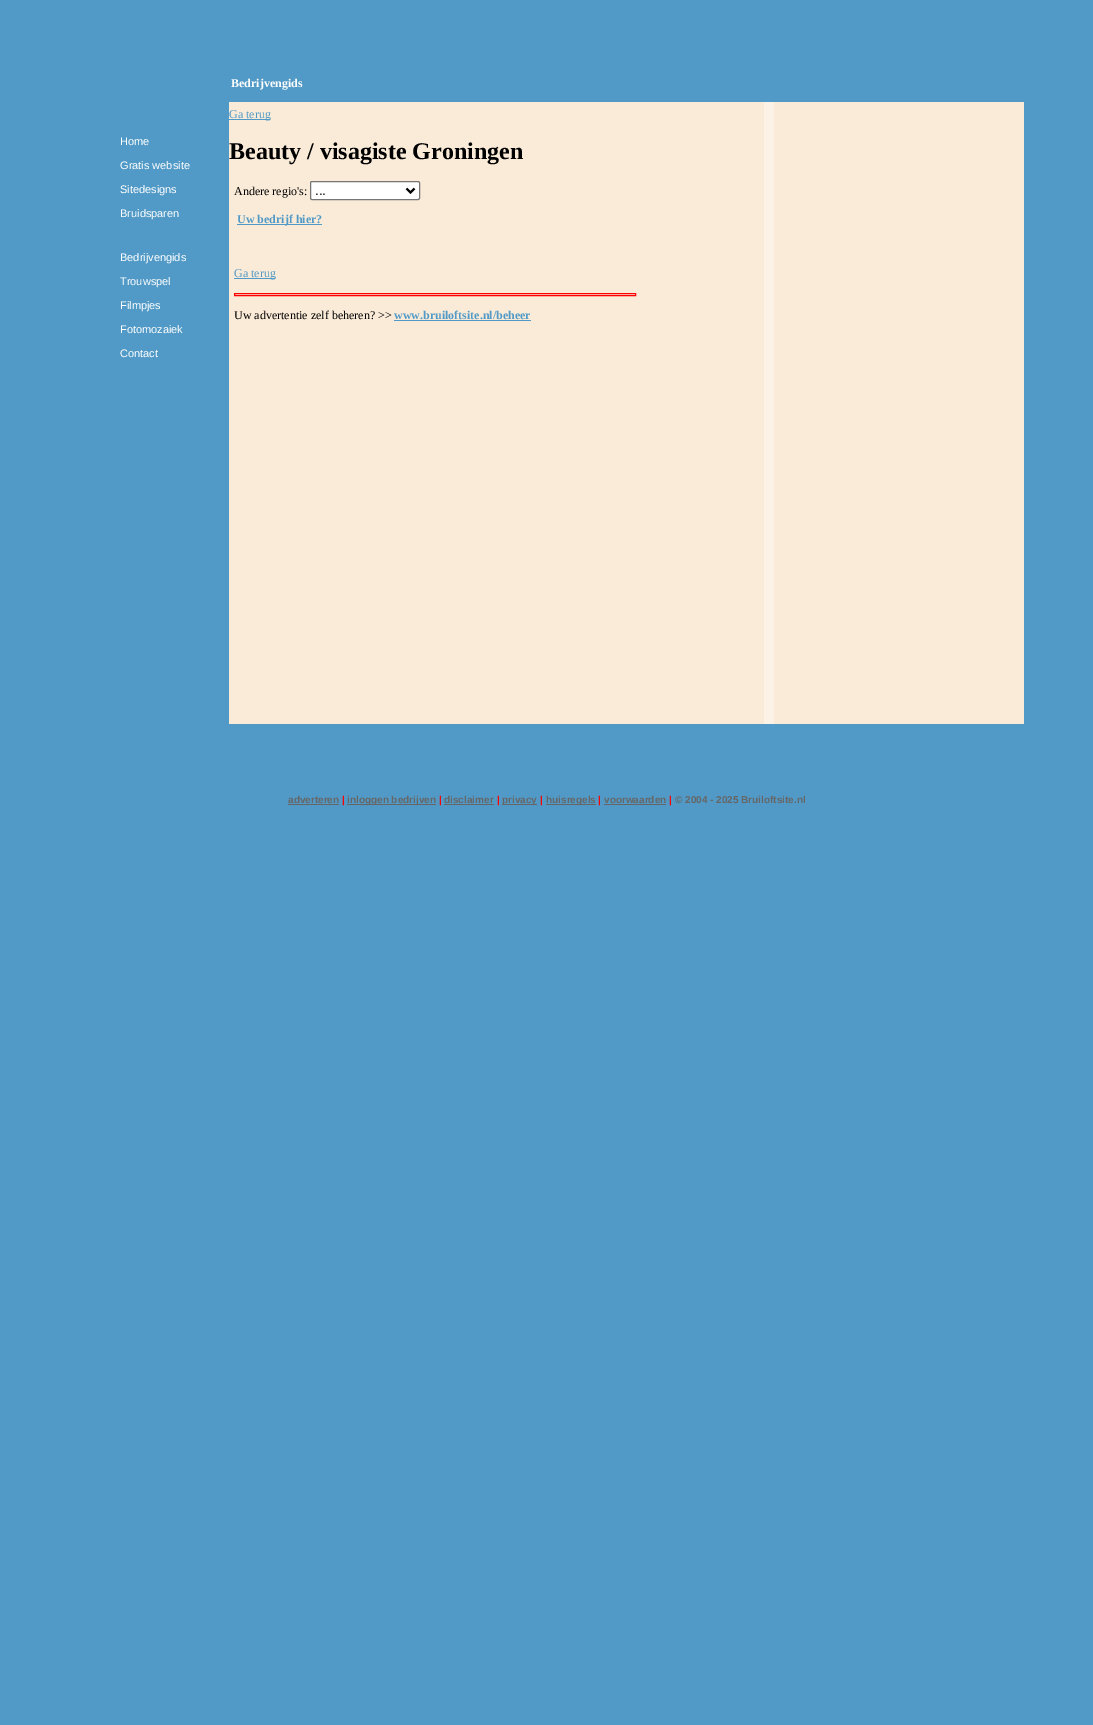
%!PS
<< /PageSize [1093 1725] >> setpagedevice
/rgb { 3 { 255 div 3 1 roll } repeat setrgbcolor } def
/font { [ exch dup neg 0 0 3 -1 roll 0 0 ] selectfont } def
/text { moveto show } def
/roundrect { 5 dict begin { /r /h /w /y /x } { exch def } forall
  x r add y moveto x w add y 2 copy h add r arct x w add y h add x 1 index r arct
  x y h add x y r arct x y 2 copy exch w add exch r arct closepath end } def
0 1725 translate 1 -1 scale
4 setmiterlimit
81 154 199 rgb
0 0 1093 1725 rectfill
250 235 216 rgb
229 102 795 622 rectfill
81 154 199 rgb
229 119 41 1 rectfill
255 255 255 rgb
310.5 181.5 109 18 1.5 roundrect gsave fill grestore
118 118 118 rgb
stroke
0 0 0 rgb
2 setlinewidth
406.5 188.5 moveto 4 4 rlineto 4 -4 rlineto stroke
81 154 199 rgb
237 224 85 1 rectfill
234 278 41 1 rectfill
255 0 0 rgb
1 setlinewidth
234.5 293.5 401 2 rectstroke
81 154 199 rgb
394 320 137 1 rectfill
252 242 230 rgb
764 102 10 622 rectfill
102 102 102 rgb
288 804 51 1 rectfill
347 804 89 1 rectfill
444 804 50 1 rectfill
502 804 35 1 rectfill
546 804 50 1 rectfill
604 804 62 1 rectfill
/LiberationSerif-Bold 12 font
255 255 255 rgb
(Bedrijvengids) 231 87 text
/LiberationSans-Regular 11 font
(Home) 120 145 text
(Gratis website) 120 169 text
(Sitedesigns) 120 193 text
(Bruidsparen) 120 217 text
(Bedrijvengids) 120 261 text
(Trouwspel) 120 285 text
(Filmpjes) 120 309 text
(Fotomozaiek) 120 333 text
(Contact) 120 357 text
/LiberationSerif-Regular 12 font
81 154 199 rgb
(Ga terug) 229 118 text
/LiberationSerif-Bold 24 font
0 0 0 rgb
(Beauty / visagiste Groningen) 229 159 text
/LiberationSerif-Regular 12 font
(Andere regio's:) 234 195 text
/LiberationSans-Regular 13 font
(...) 315 195 text
/LiberationSerif-Bold 12 font
81 154 199 rgb
(Uw bedrijf hier?) 237 223 text
/LiberationSerif-Regular 12 font
(Ga terug) 234 277 text
0 0 0 rgb
(Uw advertentie zelf beheren? >>) 234 319 text
/LiberationSerif-Bold 12 font
81 154 199 rgb
(www.bruiloftsite.nl/beheer) 394 319 text
/LiberationSans-Bold 10 font
102 102 102 rgb
(adverteren) 288 803 text
255 0 0 rgb
(|) 342 803 text
102 102 102 rgb
(inloggen bedrijven) 347 803 text
255 0 0 rgb
(|) 439 803 text
102 102 102 rgb
(disclaimer) 444 803 text
255 0 0 rgb
(|) 497 803 text
102 102 102 rgb
(privacy) 502 803 text
255 0 0 rgb
(|) 540 803 text
102 102 102 rgb
(huisregels) 546 803 text
255 0 0 rgb
(|) 598 803 text
102 102 102 rgb
(voorwaarden) 604 803 text
255 0 0 rgb
(|) 669 803 text
102 102 102 rgb
(© 2004 - 2025 Bruiloftsite.nl) 675 803 text
showpage
